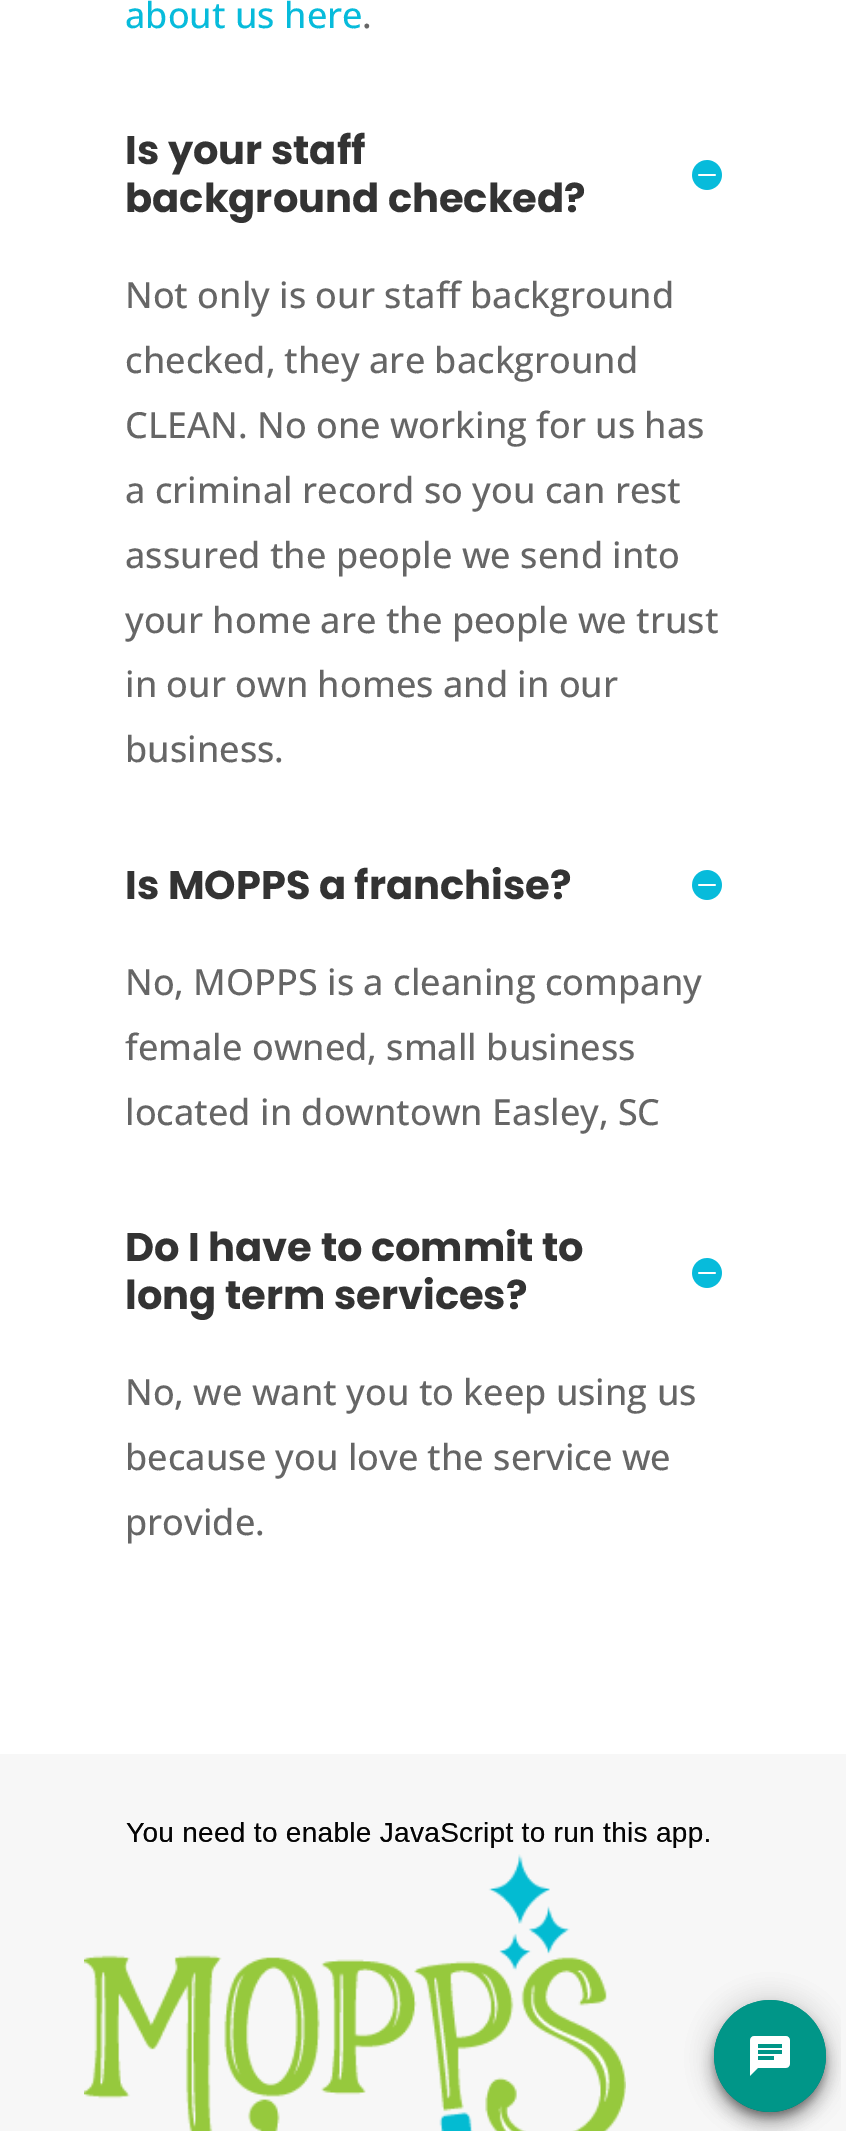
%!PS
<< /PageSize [846 2131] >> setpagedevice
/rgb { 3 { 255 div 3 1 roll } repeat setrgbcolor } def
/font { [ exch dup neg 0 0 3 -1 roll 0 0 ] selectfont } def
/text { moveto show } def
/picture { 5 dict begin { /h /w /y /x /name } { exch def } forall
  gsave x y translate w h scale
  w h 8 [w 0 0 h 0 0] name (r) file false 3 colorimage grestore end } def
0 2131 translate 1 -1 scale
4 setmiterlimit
255 255 255 rgb
0 0 846 2131 rectfill
(img_01.rgb) 692 160 30 30 picture
(img_01.rgb) 692 870 30 30 picture
(img_01.rgb) 692 1258 30 30 picture
247 247 247 rgb
0 1754 846 377 rectfill
(img_02.rgb) 84 1854 542 277 picture
(img_03.rgb) 126 1822 715 309 picture
(img_04.rgb) 126 1822 715 309 picture
/OpenSans-Medium 36 font
7 187 219 rgb
(about us here) 125 28 text
102 102 102 rgb
(.) 362 28 text
/Poppins-Bold 40 font
51 51 51 rgb
(Is your staff) 125 164 text
(background checked?) 125 212 text
/OpenSans-Medium 36 font
102 102 102 rgb
(Not only is our staff background) 125 308 text
(checked, they are background) 125 373 text
(CLEAN. No one working for us has) 125 438 text
(a criminal record so you can rest) 125 503 text
(assured the people we send into) 125 568 text
(your home are the people we trust) 125 633 text
(in our own homes and in our) 125 697 text
(business.) 125 762 text
/Poppins-Bold 40 font
51 51 51 rgb
(Is MOPPS a franchise?) 125 899 text
/OpenSans-Medium 36 font
102 102 102 rgb
(No, MOPPS is a cleaning company) 125 995 text
(female owned, small business) 125 1060 text
(located in downtown Easley, SC) 125 1125 text
/Poppins-Bold 40 font
51 51 51 rgb
(Do I have to commit to) 125 1261 text
(long term services?) 125 1309 text
/OpenSans-Medium 36 font
102 102 102 rgb
(No, we want you to keep using us) 125 1405 text
(because you love the service we) 125 1470 text
(provide.) 125 1535 text
showpage
